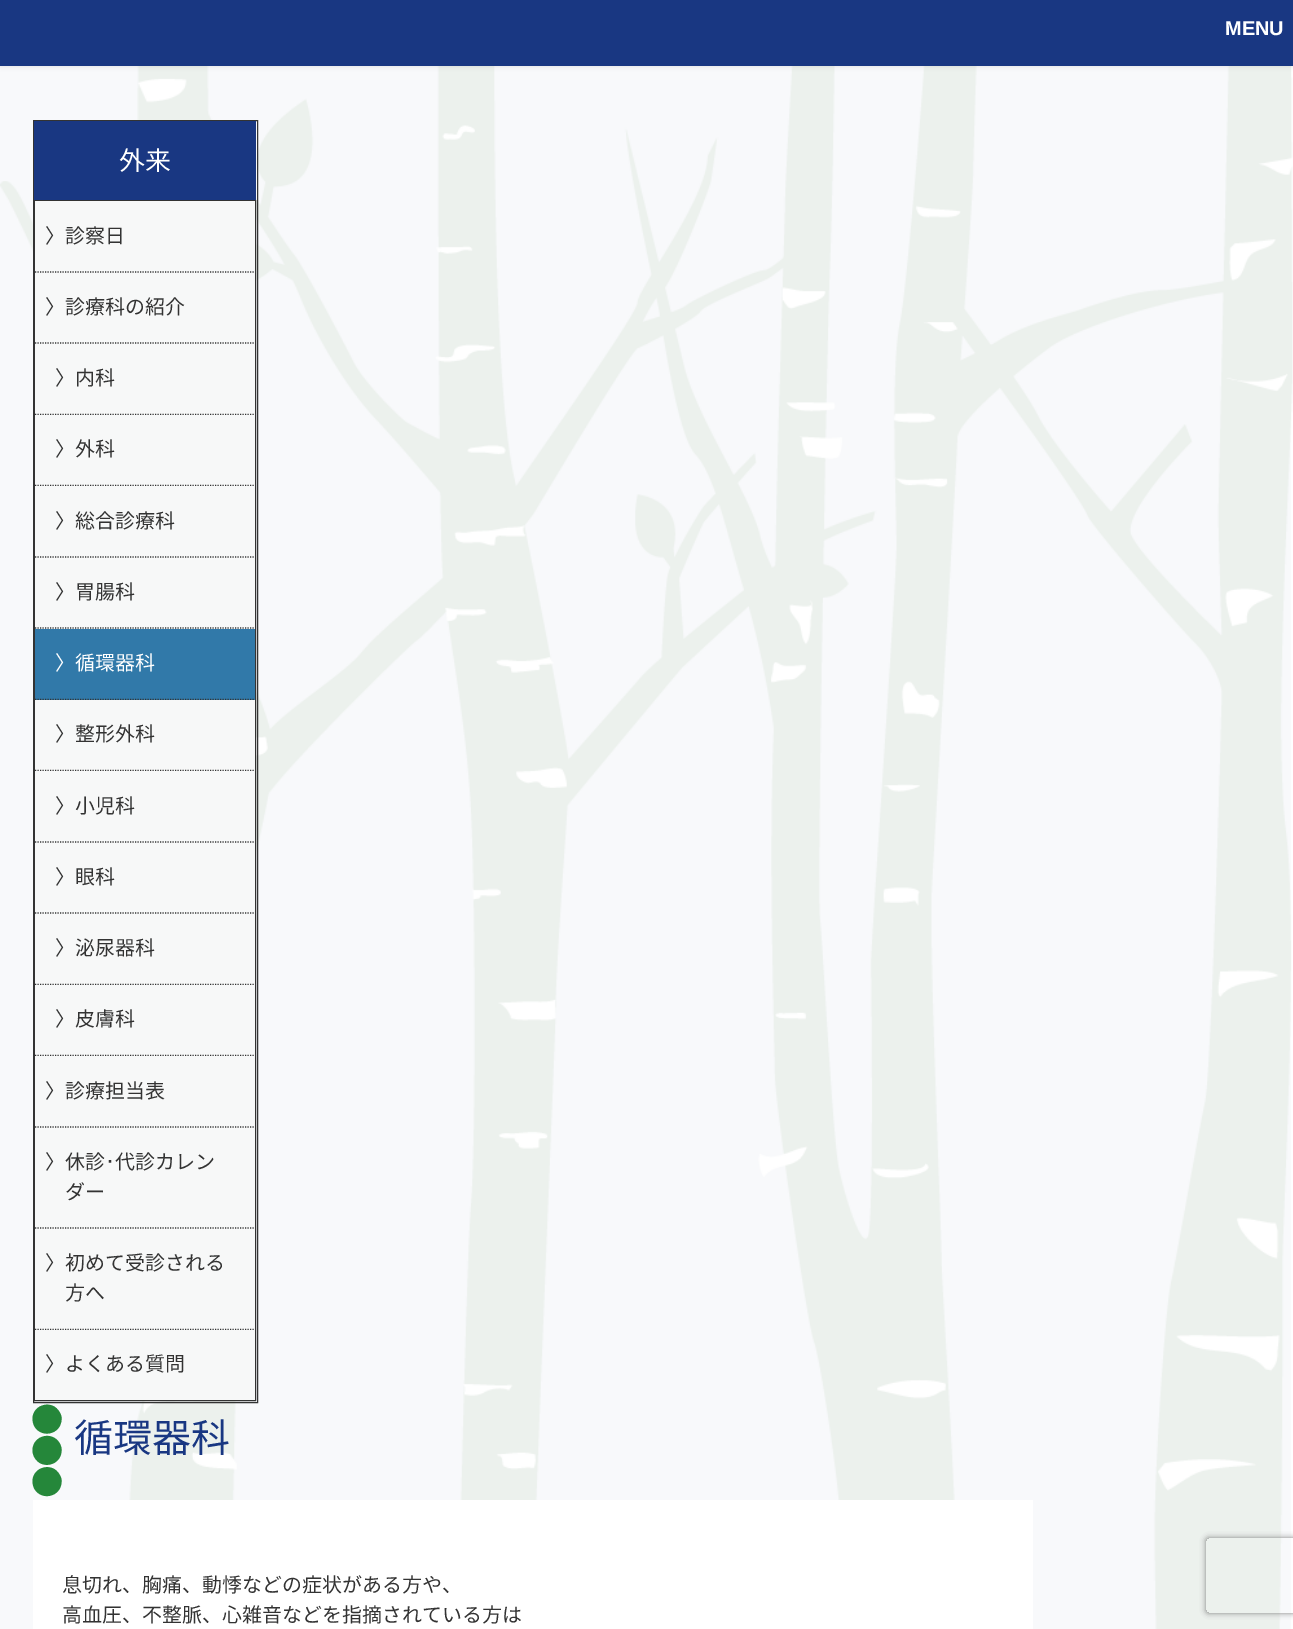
%!PS
<< /PageSize [1293 1629] /PageUsesTransparency true >> setpagedevice
/rgb { 3 { 255 div 3 1 roll } repeat setrgbcolor } def
/font { [ exch dup neg 0 0 3 -1 roll 0 0 ] selectfont } def
/text { moveto show } def
/alpha { dup .setfillconstantalpha .setstrokeconstantalpha } def
/roundrect { 5 dict begin { /r /h /w /y /x } { exch def } forall
  x r add y moveto x w add y 2 copy h add r arct x w add y h add x 1 index r arct
  x y h add x y r arct x y 2 copy exch w add exch r arct closepath end } def
/shadow { 12 dict begin { /a /b /q /h /w /y /x } { exch def } forall gsave /was 0 def
  9 -2 -9 { dup b mul 4 div /e exch def 1 sub .425 mul 2.718 exch exp 1 add a .99 .min exch div /now exch def
    1 1 now sub 1 was sub div sub alpha /was now def
    w h .min e 2 mul add 0 gt { x e sub y e sub w e 2 mul add h e 2 mul add
      q e add b .6 mul add w h .min 2 div e add .min 0 .max roundrect fill } if } for grestore end } def
/picture { 5 dict begin { /h /w /y /x /name } { exch def } forall
  gsave x y translate w h scale
  w h 8 [w 0 0 h 0 0] name (r) file false 3 colorimage grestore end } def
0 .pushpdf14devicefilter
0 1629 translate 1 -1 scale
4 setmiterlimit
255 255 255 rgb
0 0 1293 1629 rectfill
(img_01.rgb) 0 66 1293 1563 picture
0 0 0 rgb
0 3 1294 63 0 2.5 0.1 shadow
25 55 130 rgb
0 0 1293 66 rectfill
51 51 51 rgb
33.5 120.5 224 1282 rectstroke
25 55 130 rgb
34 121 222 79 rectfill
51 51 51 rgb
34.5 200.5 221 1200 rectstroke
247 248 248 rgb
35 201 220 214 rectfill
51 51 51 rgb
1.2 setlinewidth
[1.25 1.25] 0 setdash
35 272 moveto 220 0 rlineto stroke
35 343 moveto 220 0 rlineto stroke
35 414.5 moveto 220 0 rlineto stroke
247 248 248 rgb
35 415 220 71 rectfill
51 51 51 rgb
35 485.5 moveto 220 0 rlineto stroke
247 248 248 rgb
35 486 220 143 rectfill
51 51 51 rgb
35 557 moveto 220 0 rlineto stroke
35 628 moveto 220 0 rlineto stroke
49 121 169 rgb
35 629 220 71 rectfill
51 51 51 rgb
35 699.5 moveto 220 0 rlineto stroke
247 248 248 rgb
35 700 220 71 rectfill
51 51 51 rgb
35 770.5 moveto 220 0 rlineto stroke
247 248 248 rgb
35 771 220 214 rectfill
51 51 51 rgb
35 842 moveto 220 0 rlineto stroke
35 913 moveto 220 0 rlineto stroke
35 984.5 moveto 220 0 rlineto stroke
247 248 248 rgb
35 985 220 71 rectfill
51 51 51 rgb
35 1055.5 moveto 220 0 rlineto stroke
247 248 248 rgb
35 1056 220 274 rectfill
51 51 51 rgb
35 1127 moveto 220 0 rlineto stroke
35 1228 moveto 220 0 rlineto stroke
35 1329.5 moveto 220 0 rlineto stroke
247 248 248 rgb
35 1330 220 70 rectfill
37 135 58 rgb
59.5 1412 moveto 1.5 2.5 2.5 5 2 8 rcurveto -1 14.5 -20 18.5 -27 6.5 rcurveto -1.5 -2.5 -2 -5.5 -2 -8.5 rcurveto 1 -14 20 -18.5 27 -6 rcurveto closepath 59.5 1443 moveto 1.5 2.5 2.5 5.5 2 8.5 rcurveto -1 14 -20 18.5 -27 6 rcurveto -1.5 -2.5 -2 -5 -2 -8 rcurveto 1 -14.5 20 -18.5 27 -6.5 rcurveto closepath fill
59.5 1474.5 moveto 1.5 2.5 2.5 5 2 8 rcurveto -1 14.5 -20 18.5 -27 6.5 rcurveto -1.5 -2.5 -2 -5.5 -2 -8.5 rcurveto 1 -14 20 -18.5 27 -6 rcurveto closepath fill
255 255 255 rgb
33 1500 1000 129 rectfill
gsave
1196 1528 moveto 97 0 rlineto 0 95 rlineto -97 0 rlineto closepath 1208.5 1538 moveto 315 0 rlineto 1.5 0 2.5 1 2.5 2.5 rcurveto 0 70 rlineto 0 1.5 -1 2.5 -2.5 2.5 rcurveto -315 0 rlineto -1.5 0 -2.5 -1 -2.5 -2.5 rcurveto 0 -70 rlineto 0 -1.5 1 -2.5 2.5 -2.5 rcurveto closepath eoclip newpath
128 128 128 rgb
1206 1538 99 75 2.5 3 1 shadow
grestore
/LiberationSans-Bold 20 font
(MENU) 1225 35 text
/NotoSansJP-Regular 26 font
(外来) 119 170 text
/NotoSansJP-Regular 20 font
51 51 51 rgb
(〉診察日) 45 243 text
(〉診療科の紹介) 45 314 text
(〉内科) 55 385 text
(〉外科) 55 456 text
(〉総合診療科) 55 528 text
(〉胃腸科) 55 599 text
255 255 255 rgb
(〉循環器科) 55 670 text
51 51 51 rgb
(〉整形外科) 55 741 text
(〉小児科) 55 813 text
(〉眼科) 55 884 text
(〉泌尿器科) 55 955 text
(〉皮膚科) 55 1026 text
(〉診療担当表) 45 1098 text
(〉休診) 45 1169 text
/IPAGothic-Regular 20 font
(･) 105 1169 text
/NotoSansJP-Regular 20 font
(代診カレン) 115 1169 text
(ダー) 65 1199 text
(〉初めて受診される) 45 1270 text
(方へ) 65 1300 text
(〉よくある質問) 45 1371 text
/NotoSansJP-Regular 39 font
25 55 130 rgb
(循環器科) 74 1452 text
/NotoSansJP-Regular 20 font
51 51 51 rgb
(息切れ、胸痛、動悸などの症状がある方や、) 62 1592 text
(高血圧、不整脈、心雑音などを指摘されている方は) 62 1622 text
.poppdf14devicefilter showpage
